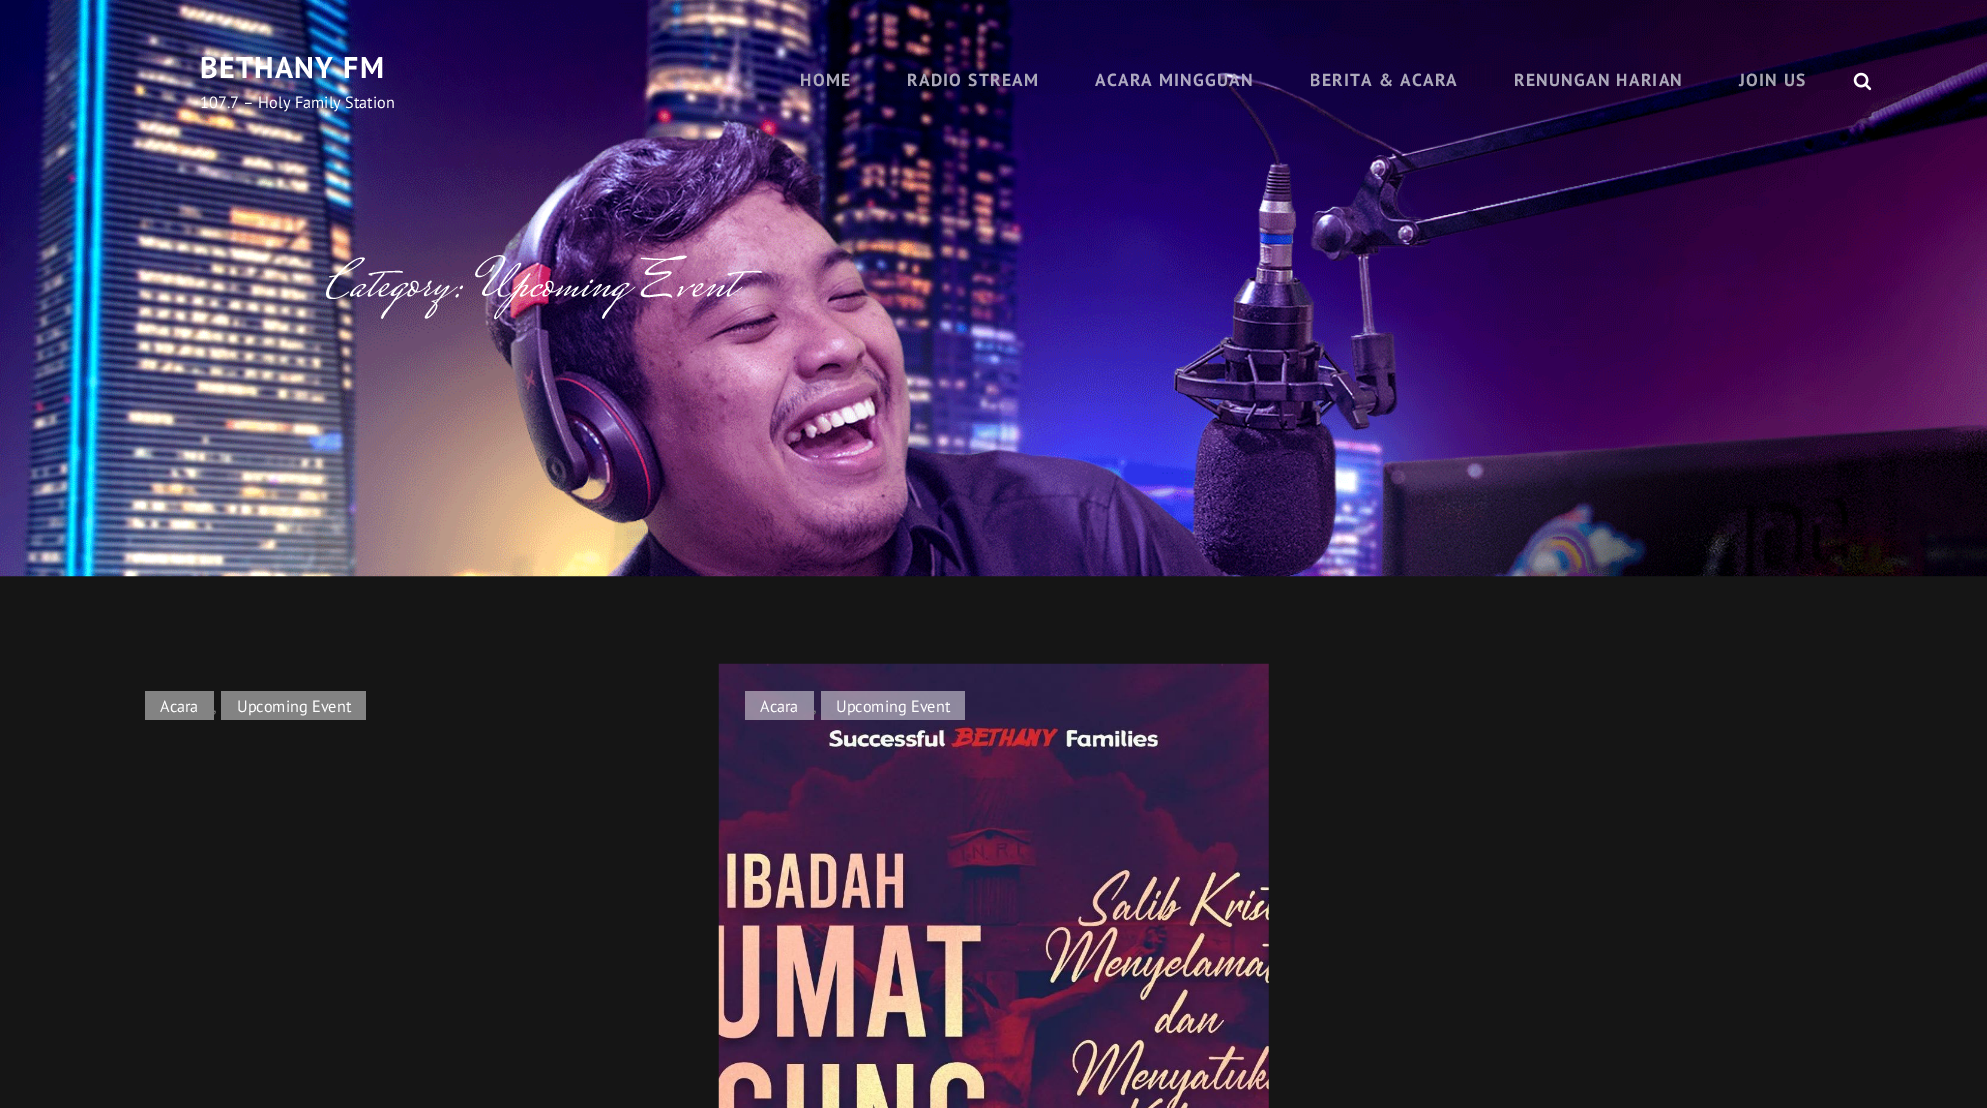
%!PS
<< /PageSize [1987 1108] /PageUsesTransparency true >> setpagedevice
/rgb { 3 { 255 div 3 1 roll } repeat setrgbcolor } def
/font { [ exch dup neg 0 0 3 -1 roll 0 0 ] selectfont } def
/text { moveto show } def
/alpha { dup .setfillconstantalpha .setstrokeconstantalpha } def
/picture { 5 dict begin { /h /w /y /x /name } { exch def } forall
  gsave x y translate w h scale
  w h 8 [w 0 0 h 0 0] name (r) file false 3 colorimage grestore end } def
0 .pushpdf14devicefilter
0 1108 translate 1 -1 scale
4 setmiterlimit
21 21 21 rgb
0 0 1987 1108 rectfill
(img_02.rgb) 0 0 1987 577 picture
(img_01.rgb) 1853 72 19 19 picture
131 131 131 rgb
145 691 69 29 rectfill
221 691 145 29 rectfill
(img_03.rgb) 718 663 551 445 picture
0.47 alpha
255 255 255 rgb
745 691 69 29 rectfill
821 691 144 29 rectfill
/PTSans-Bold 30 font
1 alpha
200 78 moveto 1.25 0 (BETHANY FM) ashow
/PTSans-Regular 16.25 font
(107.7 – Holy Family Station) 200 108 text
/PTSans-Bold 17.5 font
172 169 186 rgb
800 86 moveto 1.25 0 (HOME) ashow
907 86 moveto 1.25 0 (RADIO STREAM) ashow
175 169 194 rgb
1095 86 moveto 1.25 0 (ACARA MINGGUAN) ashow
172 169 186 rgb
1310 86 moveto 1.25 0 (BERITA & ACARA) ashow
1514 86 moveto 1.25 0 (RENUNGAN HARIAN) ashow
168 166 178 rgb
1739 86 moveto 1.25 0 (JOIN US) ashow
/MrsSaintDelafield-Regular 55 font
255 255 255 rgb
(Category: Upcoming Event) 326 296 text
/PTSans-Regular 16.25 font
(Acara) 160 712 text
123 123 123 rgb
(,) 213 712 text
255 255 255 rgb
(Upcoming Event) 237 712 text
(Acara) 760 712 text
123 123 123 rgb
(,) 813 712 text
255 255 255 rgb
(Upcoming Event) 836 712 text
.poppdf14devicefilter showpage
